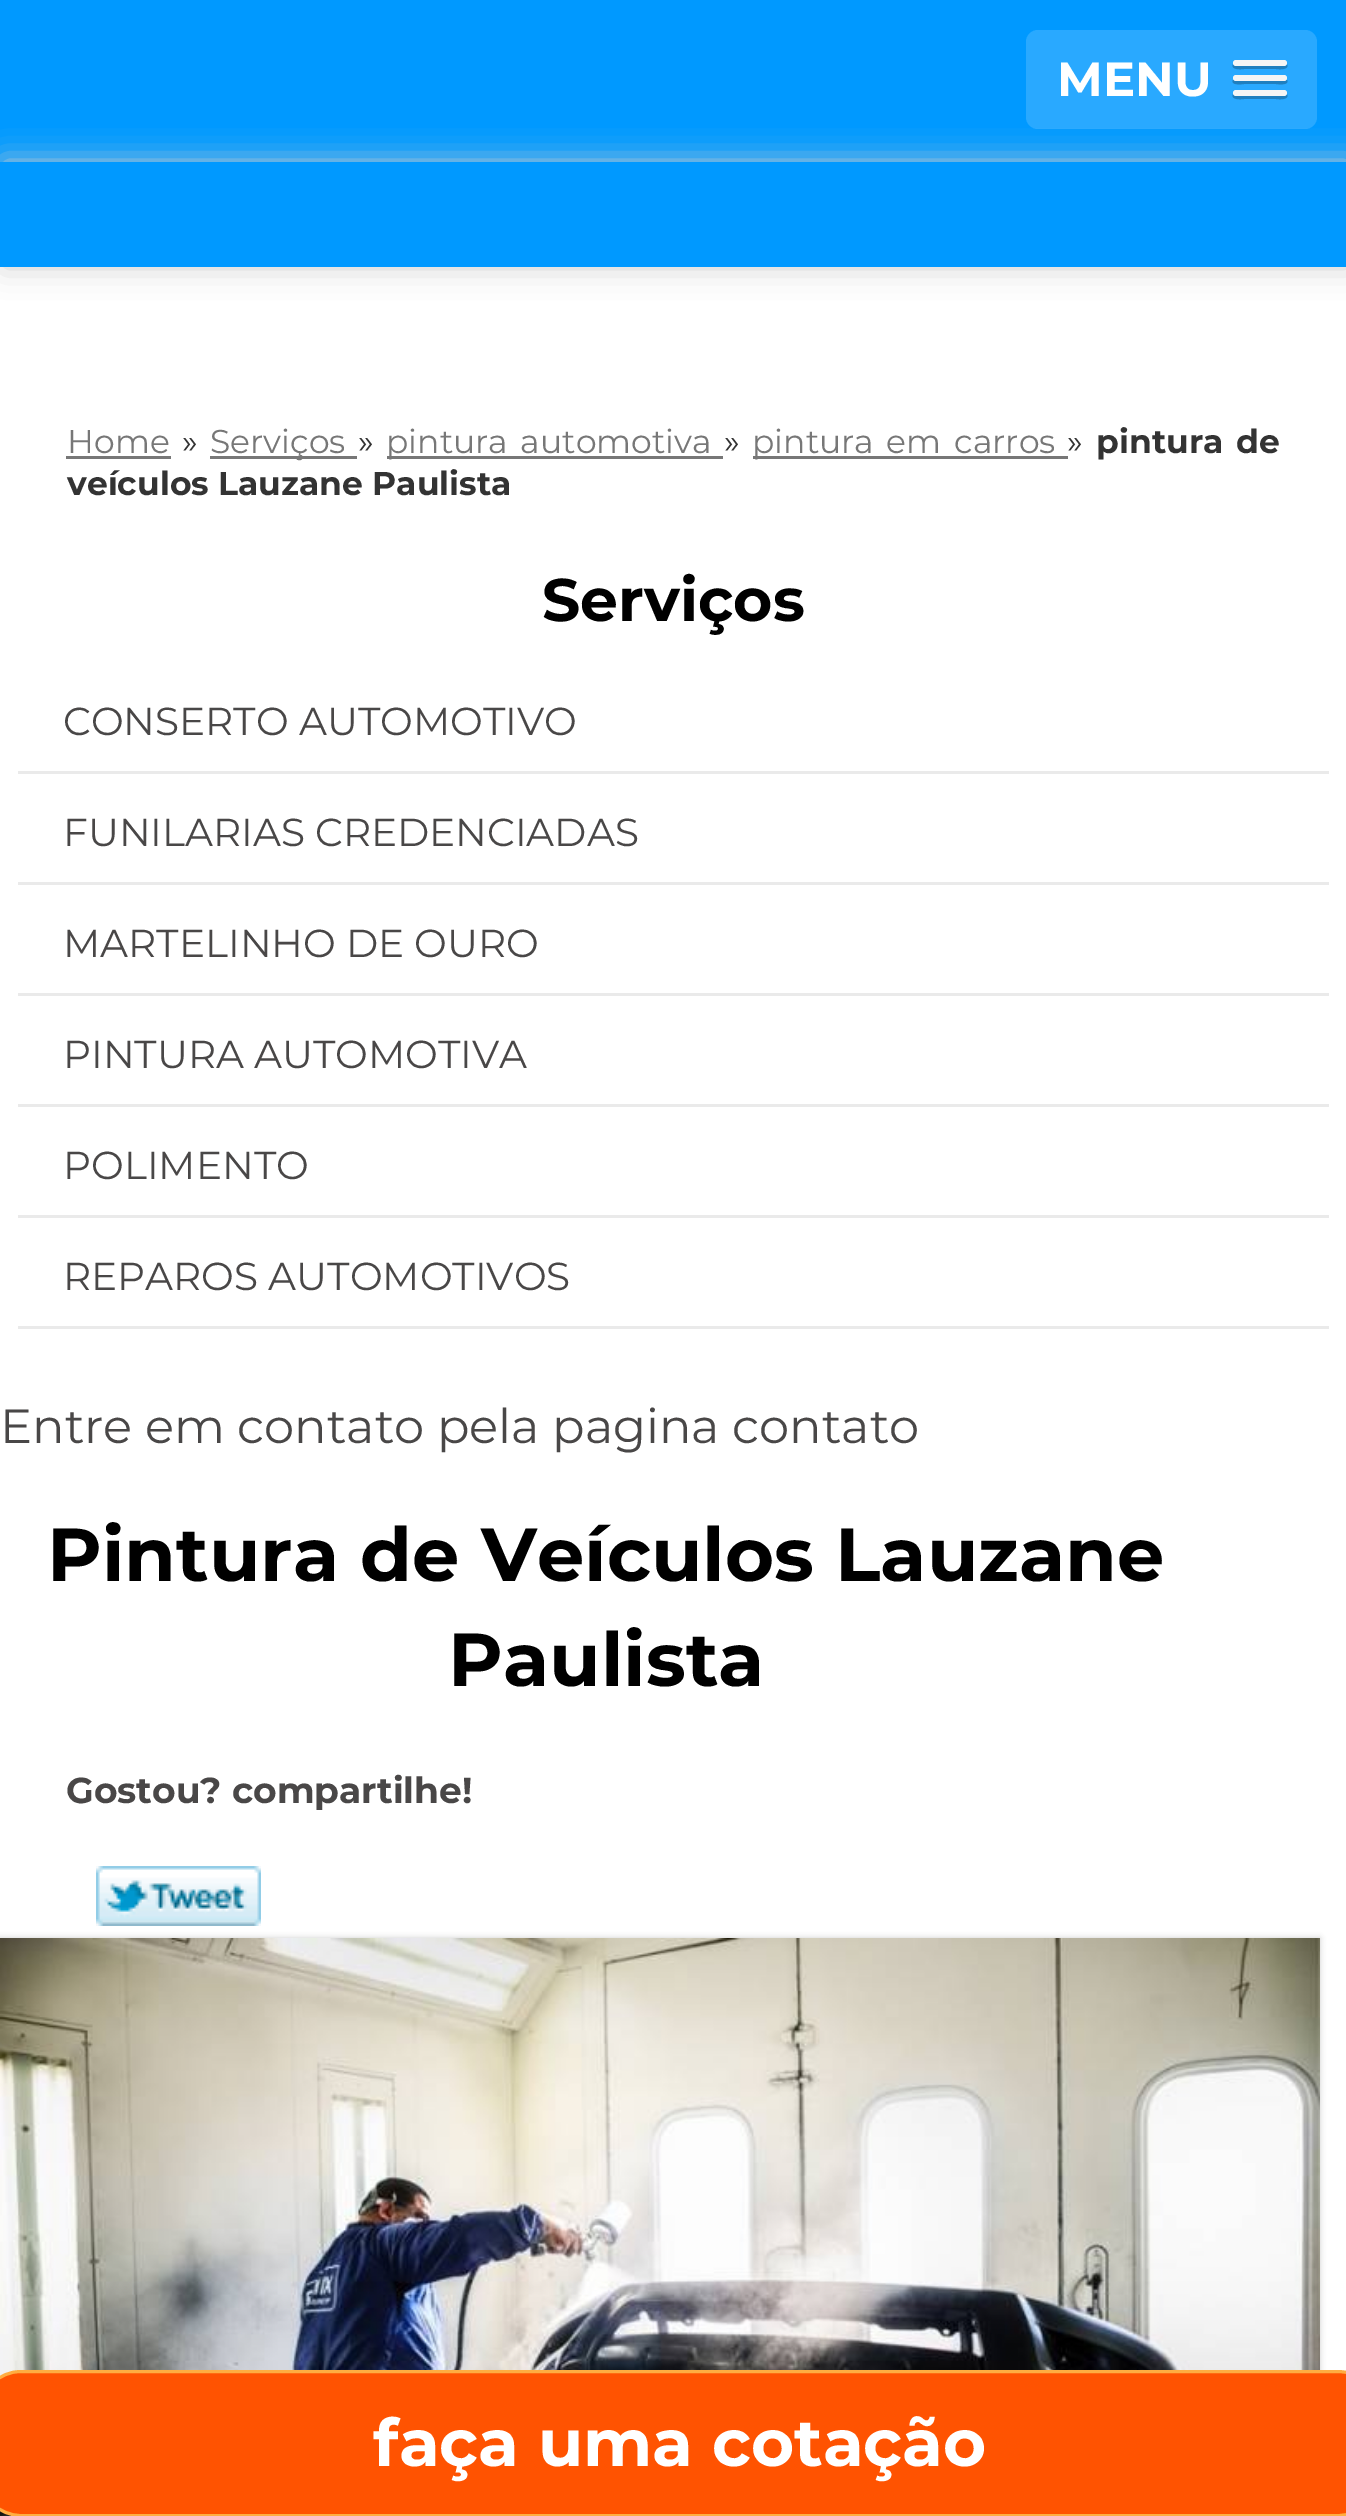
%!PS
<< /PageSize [1346 2516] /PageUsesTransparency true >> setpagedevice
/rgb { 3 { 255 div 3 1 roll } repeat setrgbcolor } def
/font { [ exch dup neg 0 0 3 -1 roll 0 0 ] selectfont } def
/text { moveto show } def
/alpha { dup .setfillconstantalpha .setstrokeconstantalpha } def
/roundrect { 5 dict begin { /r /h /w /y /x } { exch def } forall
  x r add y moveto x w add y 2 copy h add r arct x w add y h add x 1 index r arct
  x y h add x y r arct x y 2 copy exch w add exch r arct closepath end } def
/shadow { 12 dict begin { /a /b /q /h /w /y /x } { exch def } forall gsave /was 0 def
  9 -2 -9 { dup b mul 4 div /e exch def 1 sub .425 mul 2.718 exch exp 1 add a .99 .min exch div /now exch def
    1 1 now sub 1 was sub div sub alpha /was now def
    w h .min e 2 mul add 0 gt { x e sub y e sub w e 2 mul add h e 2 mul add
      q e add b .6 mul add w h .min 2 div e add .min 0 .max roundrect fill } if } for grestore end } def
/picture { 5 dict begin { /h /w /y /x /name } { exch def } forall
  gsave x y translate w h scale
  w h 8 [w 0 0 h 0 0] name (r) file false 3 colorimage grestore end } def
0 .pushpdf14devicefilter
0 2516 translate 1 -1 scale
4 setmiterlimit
255 255 255 rgb
0 0 1346 2516 rectfill
0 153 255 rgb
0 0 1346 162 rectfill
204 204 204 rgb
3 162 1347 105 0 15 1 shadow
0.16 alpha
255 255 255 rgb
1026 30 291 99 12 roundrect fill
1 alpha
31 127 191 rgb
1233 64 moveto -3 7 11 5 11 5 rcurveto 32 0 rlineto 0 0 14 2 11 -5 rcurveto -1 1 -2 2 -3 2 rcurveto -48 0 rlineto -1 0 -2 -1 -3 -2 rcurveto closepath fill
245 245 245 rgb
1233 60 54 6 3 roundrect fill
31 127 191 rgb
1233 80 moveto -3 6 11 4 11 4 rcurveto 32 0 rlineto 0 0 14 2 11 -4 rcurveto -1 0 -2 1 -3 1 rcurveto -48 0 rlineto -1 0 -2 -1 -3 -1 rcurveto closepath fill
245 245 245 rgb
1233 75 54 6 3 roundrect fill
31 127 191 rgb
1233 94 moveto -3 7 11 5 11 5 rcurveto 32 0 rlineto 0 0 14 2 11 -5 rcurveto -1 1 -2 2 -3 2 rcurveto -48 0 rlineto -1 0 -2 -1 -3 -2 rcurveto closepath fill
245 245 245 rgb
1233 90 54 6 3 roundrect fill
0 153 255 rgb
0 162 1346 105 rectfill
119 119 119 rgb
66 456 105 3 rectfill
210 456 147 3 rectfill
387 456 336 3 rectfill
753 456 315 3 rectfill
234 234 234 rgb
18 771 1311 3 rectfill
18 882 1311 3 rectfill
18 993 1311 3 rectfill
18 1104 1311 3 rectfill
18 1215 1311 3 rectfill
18 1326 1311 3 rectfill
(img_01.rgb) 96 1866 165 60 picture
204 204 204 rgb
0 1938 1320 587 0 3 1 shadow
(img_02.rgb) 0 1938 1320 578 picture
255 83 1 rgb
-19.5 2371.5 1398 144 40.5 roundrect gsave fill grestore
255 173 65 rgb
3 setlinewidth
stroke
/Montserrat-Bold 48 font
255 255 255 rgb
(MENU) 1057 96 text
/Montserrat-Regular 33 font
119 119 119 rgb
(Home) 67 453 text
51 51 51 rgb
(») 182 453 text
119 119 119 rgb
(Serviços) 210 453 text
51 51 51 rgb
(») 358 453 text
119 119 119 rgb
386 453 moveto 4 0 32 (pintura automotiva) widthshow
51 51 51 rgb
(») 724 453 text
119 119 119 rgb
752 453 moveto 4 0 32 (pintura em carros) widthshow
51 51 51 rgb
(») 1067 453 text
/Montserrat-Bold 33 font
1096 453 moveto 4 0 32 (pintura de) widthshow
(veículos Lauzane Paulista) 67 495 text
/Montserrat-Bold 60 font
0 0 0 rgb
(Serviços) 542 621 text
/Montserrat-Regular 39 font
73 71 71 rgb
(CONSERTO AUTOMOTIVO) 63 735 text
(FUNILARIAS CREDENCIADAS) 63 846 text
(MARTELINHO DE OURO) 63 957 text
(PINTURA AUTOMOTIVA) 63 1068 text
(POLIMENTO) 63 1179 text
(REPAROS AUTOMOTIVOS) 63 1290 text
/Montserrat-Regular 48 font
(Entre em contato pela pagina contato) 0 1443 text
/Montserrat-Bold 75 font
0 0 0 rgb
(Pintura de Veículos Lauzane) 47 1581 text
(Paulista) 448 1686 text
/Montserrat-Bold 36 font
73 71 71 rgb
(Gostou? compartilhe!) 66 1803 text
/Montserrat-Bold 66 font
255 255 255 rgb
(faça uma cotação) 373 2466 text
.poppdf14devicefilter showpage
